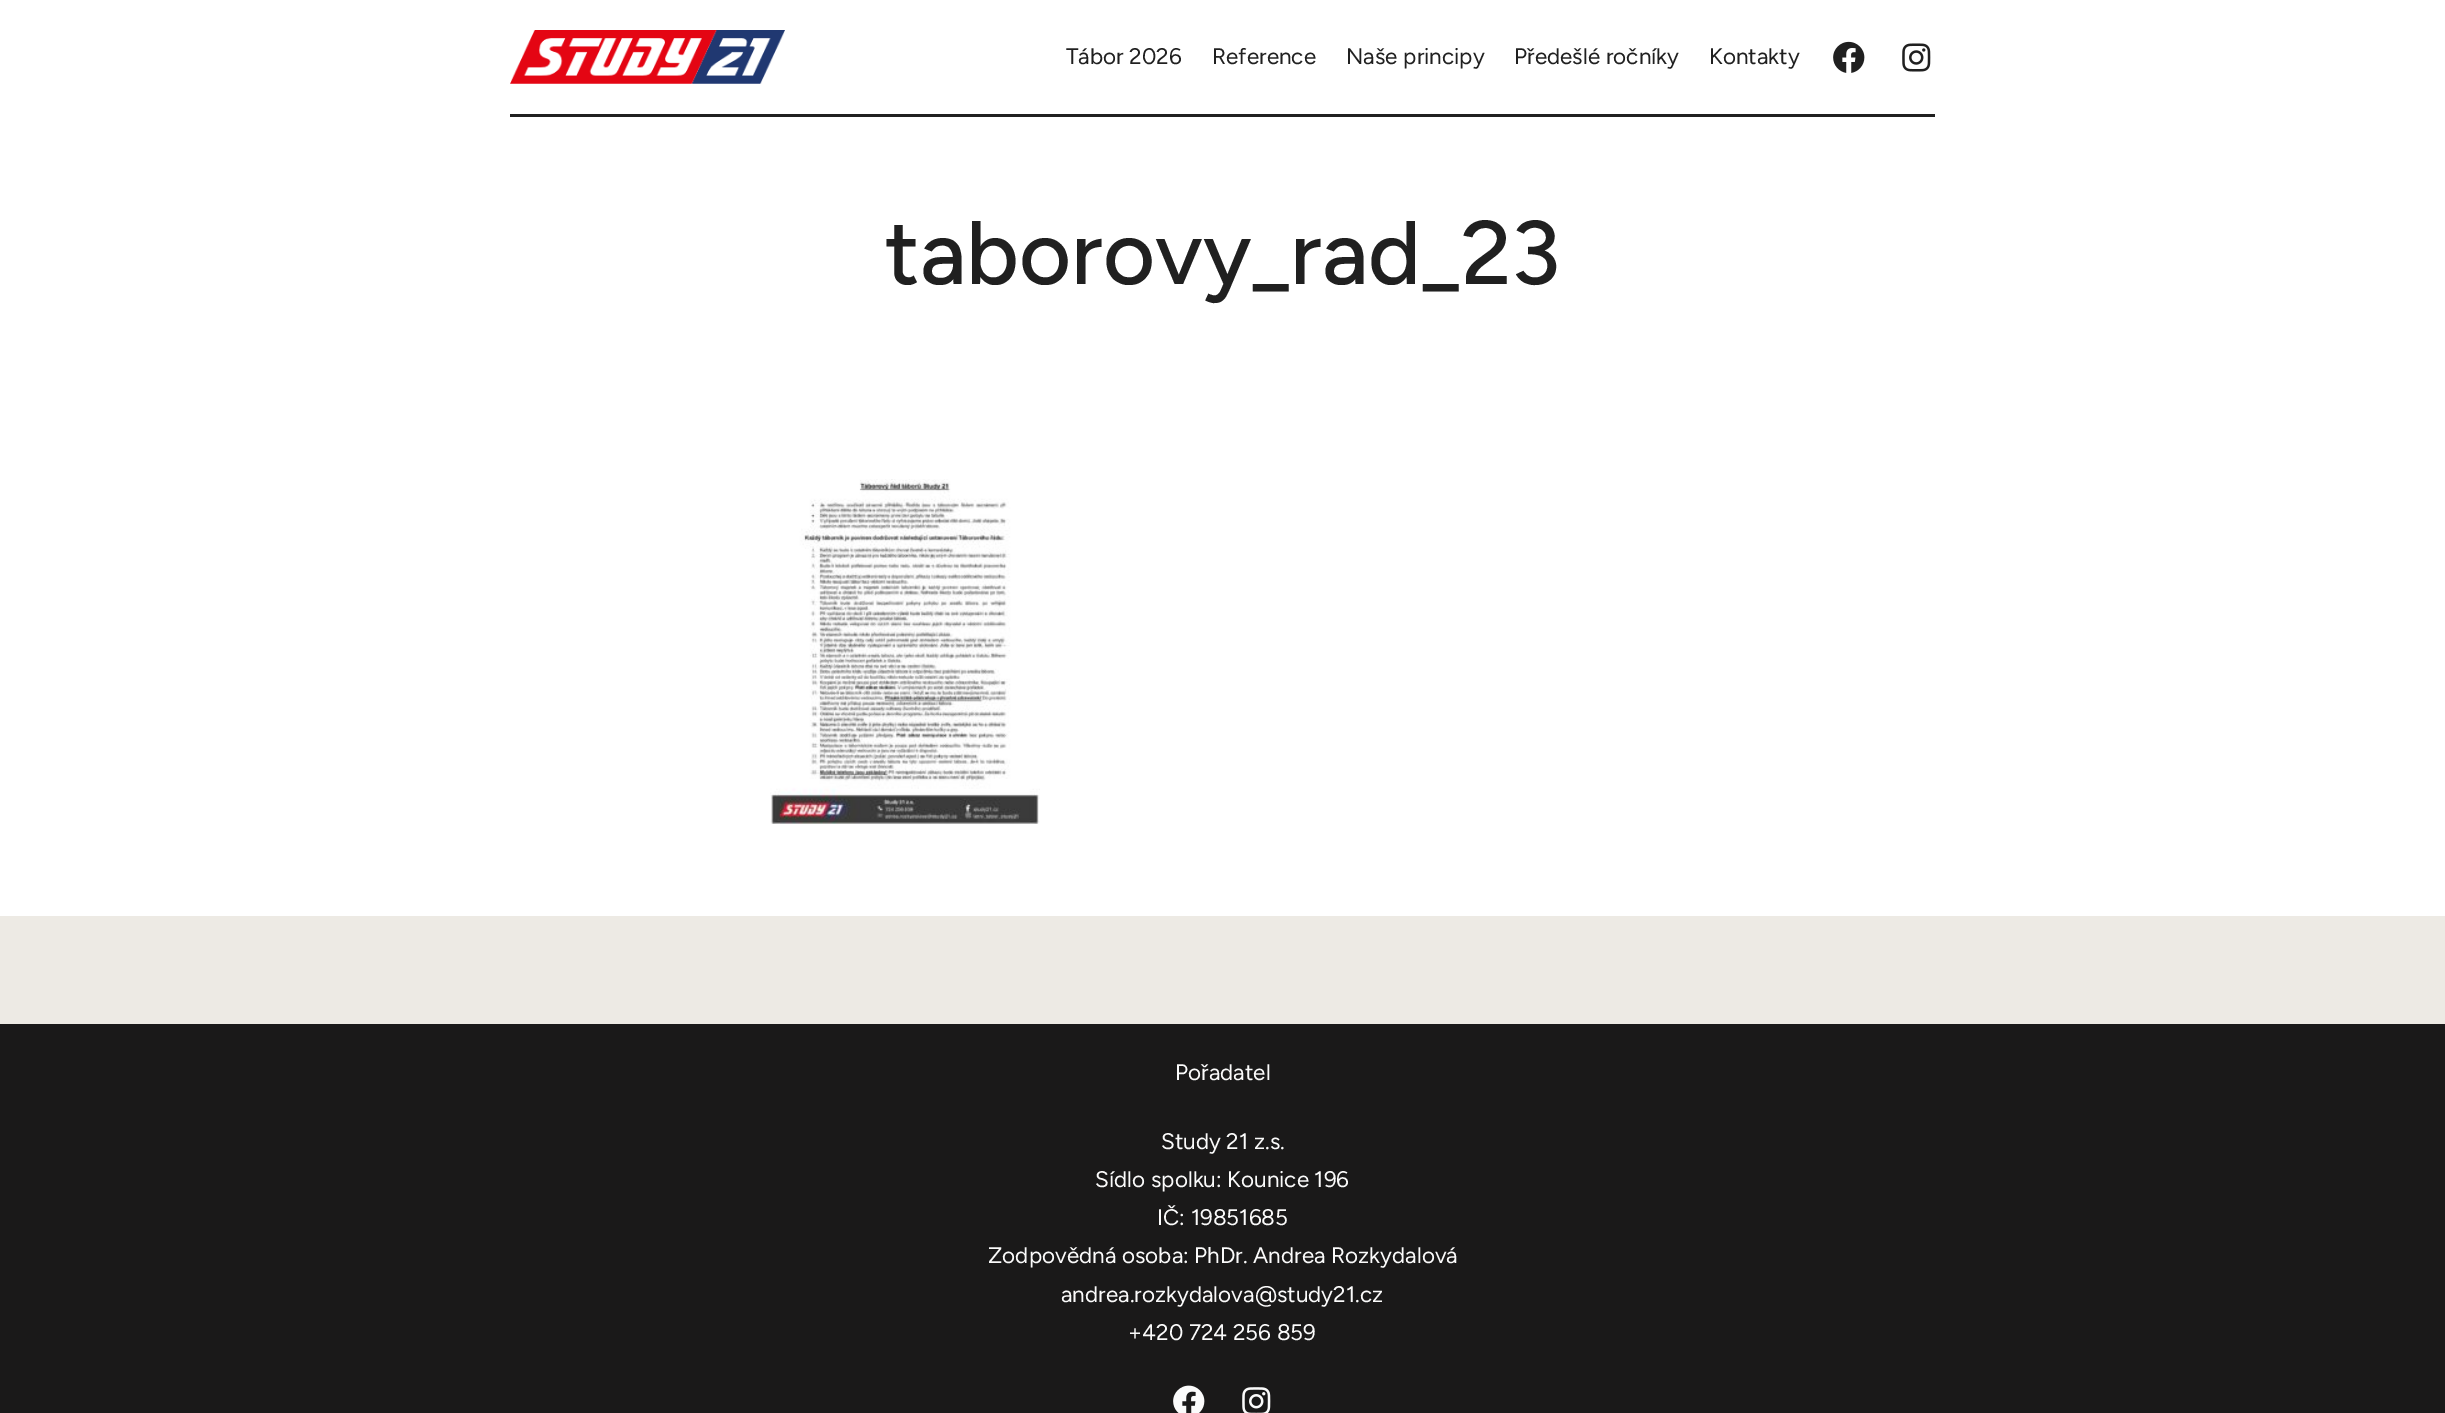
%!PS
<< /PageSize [2445 1413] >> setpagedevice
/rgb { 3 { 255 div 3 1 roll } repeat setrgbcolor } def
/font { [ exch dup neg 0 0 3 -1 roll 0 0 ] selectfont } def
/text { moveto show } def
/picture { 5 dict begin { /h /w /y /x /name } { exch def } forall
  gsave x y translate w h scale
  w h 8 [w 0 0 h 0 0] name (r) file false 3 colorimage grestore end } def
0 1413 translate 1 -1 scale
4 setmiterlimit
255 255 255 rgb
0 0 2445 1413 rectfill
32 32 32 rgb
510 114 1425 3 rectfill
(img_01.rgb) 510 30 275 54 picture
(img_02.rgb) 1833 41 32 32 picture
(img_03.rgb) 1902 43 29 29 picture
(img_04.rgb) 770 479 270 345 picture
237 234 228 rgb
0 916 2445 108 rectfill
26 25 25 rgb
0 1024 2445 389 rectfill
(img_05.rgb) 1173 1385 32 28 picture
(img_06.rgb) 1242 1387 29 26 picture
/Figtree-Regular 22.5 font
32 32 32 rgb
(Tábor 2026) 1066 64 text
(Reference) 1212 64 text
(Naše principy) 1346 64 text
(Předešlé ročníky) 1514 64 text
(Kontakty) 1709 64 text
/Figtree-Medium 90 font
(taborovy_rad_23) 885 284 text
/Figtree-Regular 22.5 font
251 251 251 rgb
(Pořadatel) 1175 1080 text
(Study 21 z.s.) 1161 1149 text
(Sídlo spolku: Kounice 196) 1095 1187 text
(IČ: 19851685) 1157 1225 text
(Zodpovědná osoba: PhDr. Andrea Rozkydalová) 988 1263 text
(andrea.rozkydalova@study21.cz) 1061 1302 text
(+420 724 256 859) 1128 1340 text
showpage
